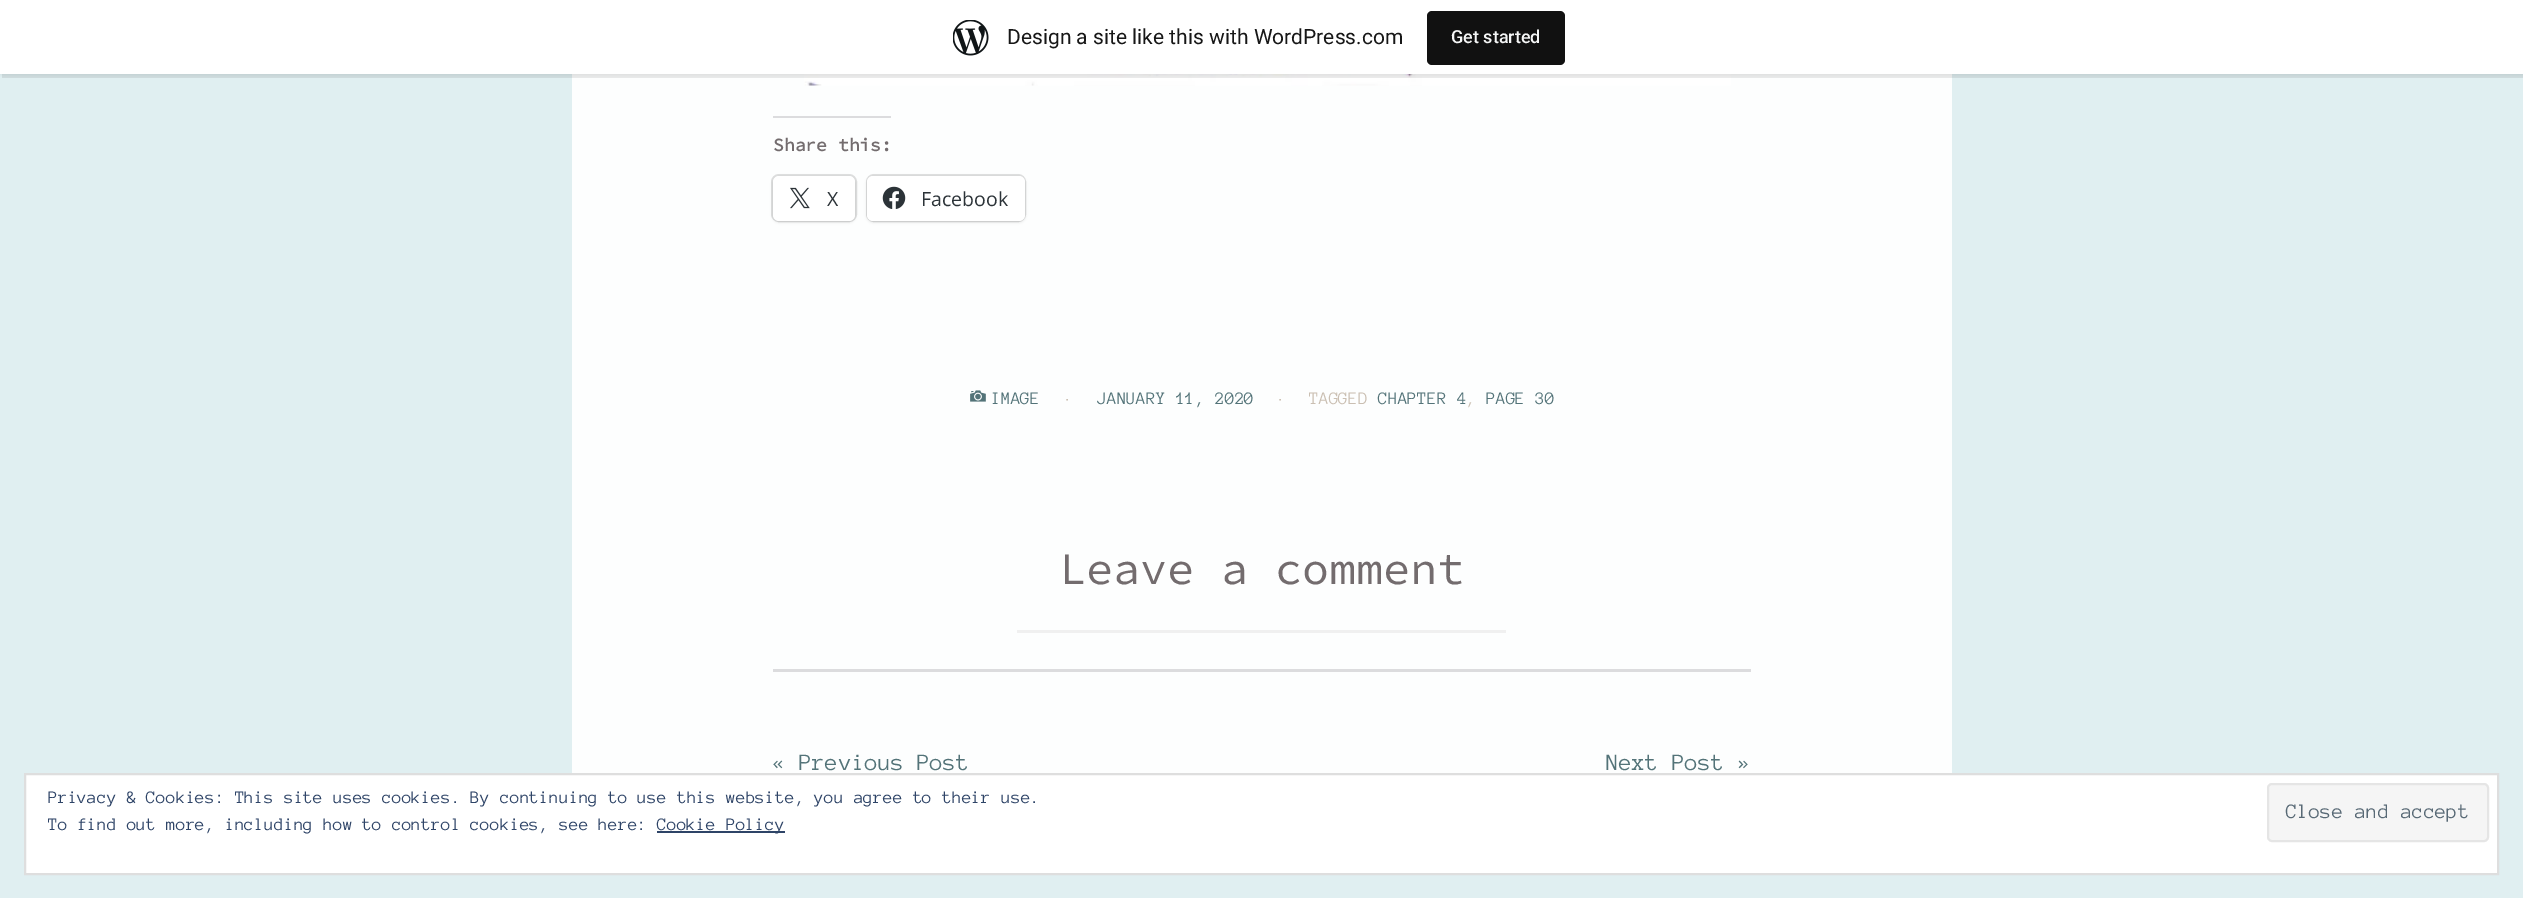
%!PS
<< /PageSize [2523 898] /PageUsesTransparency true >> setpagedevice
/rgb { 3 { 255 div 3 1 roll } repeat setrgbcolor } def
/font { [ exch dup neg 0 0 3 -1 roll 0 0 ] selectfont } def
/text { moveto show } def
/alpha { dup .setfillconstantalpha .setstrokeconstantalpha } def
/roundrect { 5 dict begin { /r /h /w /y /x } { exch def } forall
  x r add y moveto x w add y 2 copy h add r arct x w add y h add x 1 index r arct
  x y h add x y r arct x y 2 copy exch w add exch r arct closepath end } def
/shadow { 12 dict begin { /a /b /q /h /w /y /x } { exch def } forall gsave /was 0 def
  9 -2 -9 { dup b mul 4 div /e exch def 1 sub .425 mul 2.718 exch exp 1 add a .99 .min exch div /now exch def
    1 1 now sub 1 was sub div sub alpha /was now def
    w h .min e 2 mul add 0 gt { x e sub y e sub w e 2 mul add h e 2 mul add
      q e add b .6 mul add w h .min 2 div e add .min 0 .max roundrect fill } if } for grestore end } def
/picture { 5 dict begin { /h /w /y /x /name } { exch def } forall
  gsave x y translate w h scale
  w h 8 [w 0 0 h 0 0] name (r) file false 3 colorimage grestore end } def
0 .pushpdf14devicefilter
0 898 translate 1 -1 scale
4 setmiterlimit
224 239 241 rgb
0 0 2523 898 rectfill
253 254 254 rgb
572 74 1380 699 rectfill
(img_02.rgb) 804 74 927 12 picture
0 0 0 rgb
0 2 2523 73 0 1.5 0.05 shadow
0.08 alpha
2 74 moveto 0 4 rlineto 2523 0 rlineto 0 -73 rlineto -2 0 rlineto 0 69 rlineto closepath fill
1 alpha
255 255 255 rgb
0 0 2523 74 rectfill
(img_01.rgb) 953 20 36 36 picture
17 17 17 rgb
1427 11 138 54 5 roundrect fill
220 220 222 rgb
773 116 118 2 rectfill
223 224 224 rgb
2 setlinewidth
772 175 84 46 7 roundrect stroke
0 0 0 rgb
773 177 82 45 6 1.5 0.12 shadow
255 255 255 rgb
773 176 82 45 6 roundrect fill
(img_03.rgb) 790 187 20 22 picture
223 224 224 rgb
867 175 158 46 7 roundrect stroke
0 0 0 rgb
867 177 158 45 6 1.5 0.12 shadow
255 255 255 rgb
867 176 158 45 6 roundrect fill
(img_04.rgb) 882 186 24 23 picture
(img_05.rgb) 970 390 16 12 picture
240 240 240 rgb
1017 630 489 3 rectfill
220 220 222 rgb
773 669 978 3 rectfill
255 255 255 rgb
25 774 moveto 2473 0 rlineto 0 100 rlineto -2473 0 rlineto closepath gsave fill grestore
222 222 222 rgb
stroke
245 245 245 rgb
2268 784 220 57 4 roundrect gsave fill grestore
229 229 229 rgb
stroke
46 68 103 rgb
657 831 128 2 rectfill
/Roboto-Regular 21 font
23 23 23 rgb
(Design a site like this with WordPress.com) 1007 44 text
/Roboto-Medium 18 font
246 247 247 rgb
(Get started) 1451 43 text
/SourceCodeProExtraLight-Bold 18 font
115 108 110 rgb
(Share this:) 773 151 text
/OpenSans-Regular 19.5 font
44 51 56 rgb
(X) 827 206 text
(Facebook) 921 206 text
/AnonymousPro-Regular 18 font
83 115 120 rgb
(IMAGE) 991 404 text
202 191 178 rgb
(·) 1063 404 text
83 115 120 rgb
(JANUARY 11, 2020) 1097 404 text
202 191 178 rgb
(·) 1276 404 text
(TAGGED) 1309 404 text
83 115 120 rgb
(CHAPTER 4) 1378 404 text
(PAGE 30) 1486 404 text
202 191 178 rgb
(,) 1466 404 text
/SourceCodeProExtraLight-ExtraLight 45 font
115 108 110 rgb
(Leave a comment) 1059 584 text
/AnonymousPro-Regular 24 font
83 115 120 rgb
(« Previous Post) 773 770 text
(Next Post ») 1606 770 text
/AnonymousPro-Regular 18 font
46 68 103 rgb
(Privacy & Cookies: This site uses cookies. By continuing to use this website, you agree to their use.) 48 803 text
/AnonymousPro-Regular 21 font
88 105 117 rgb
(Close and accept) 2286 818 text
/AnonymousPro-Regular 18 font
46 68 103 rgb
(To find out more, including how to control cookies, see here:) 48 830 text
(Cookie Policy) 657 830 text
.poppdf14devicefilter showpage
